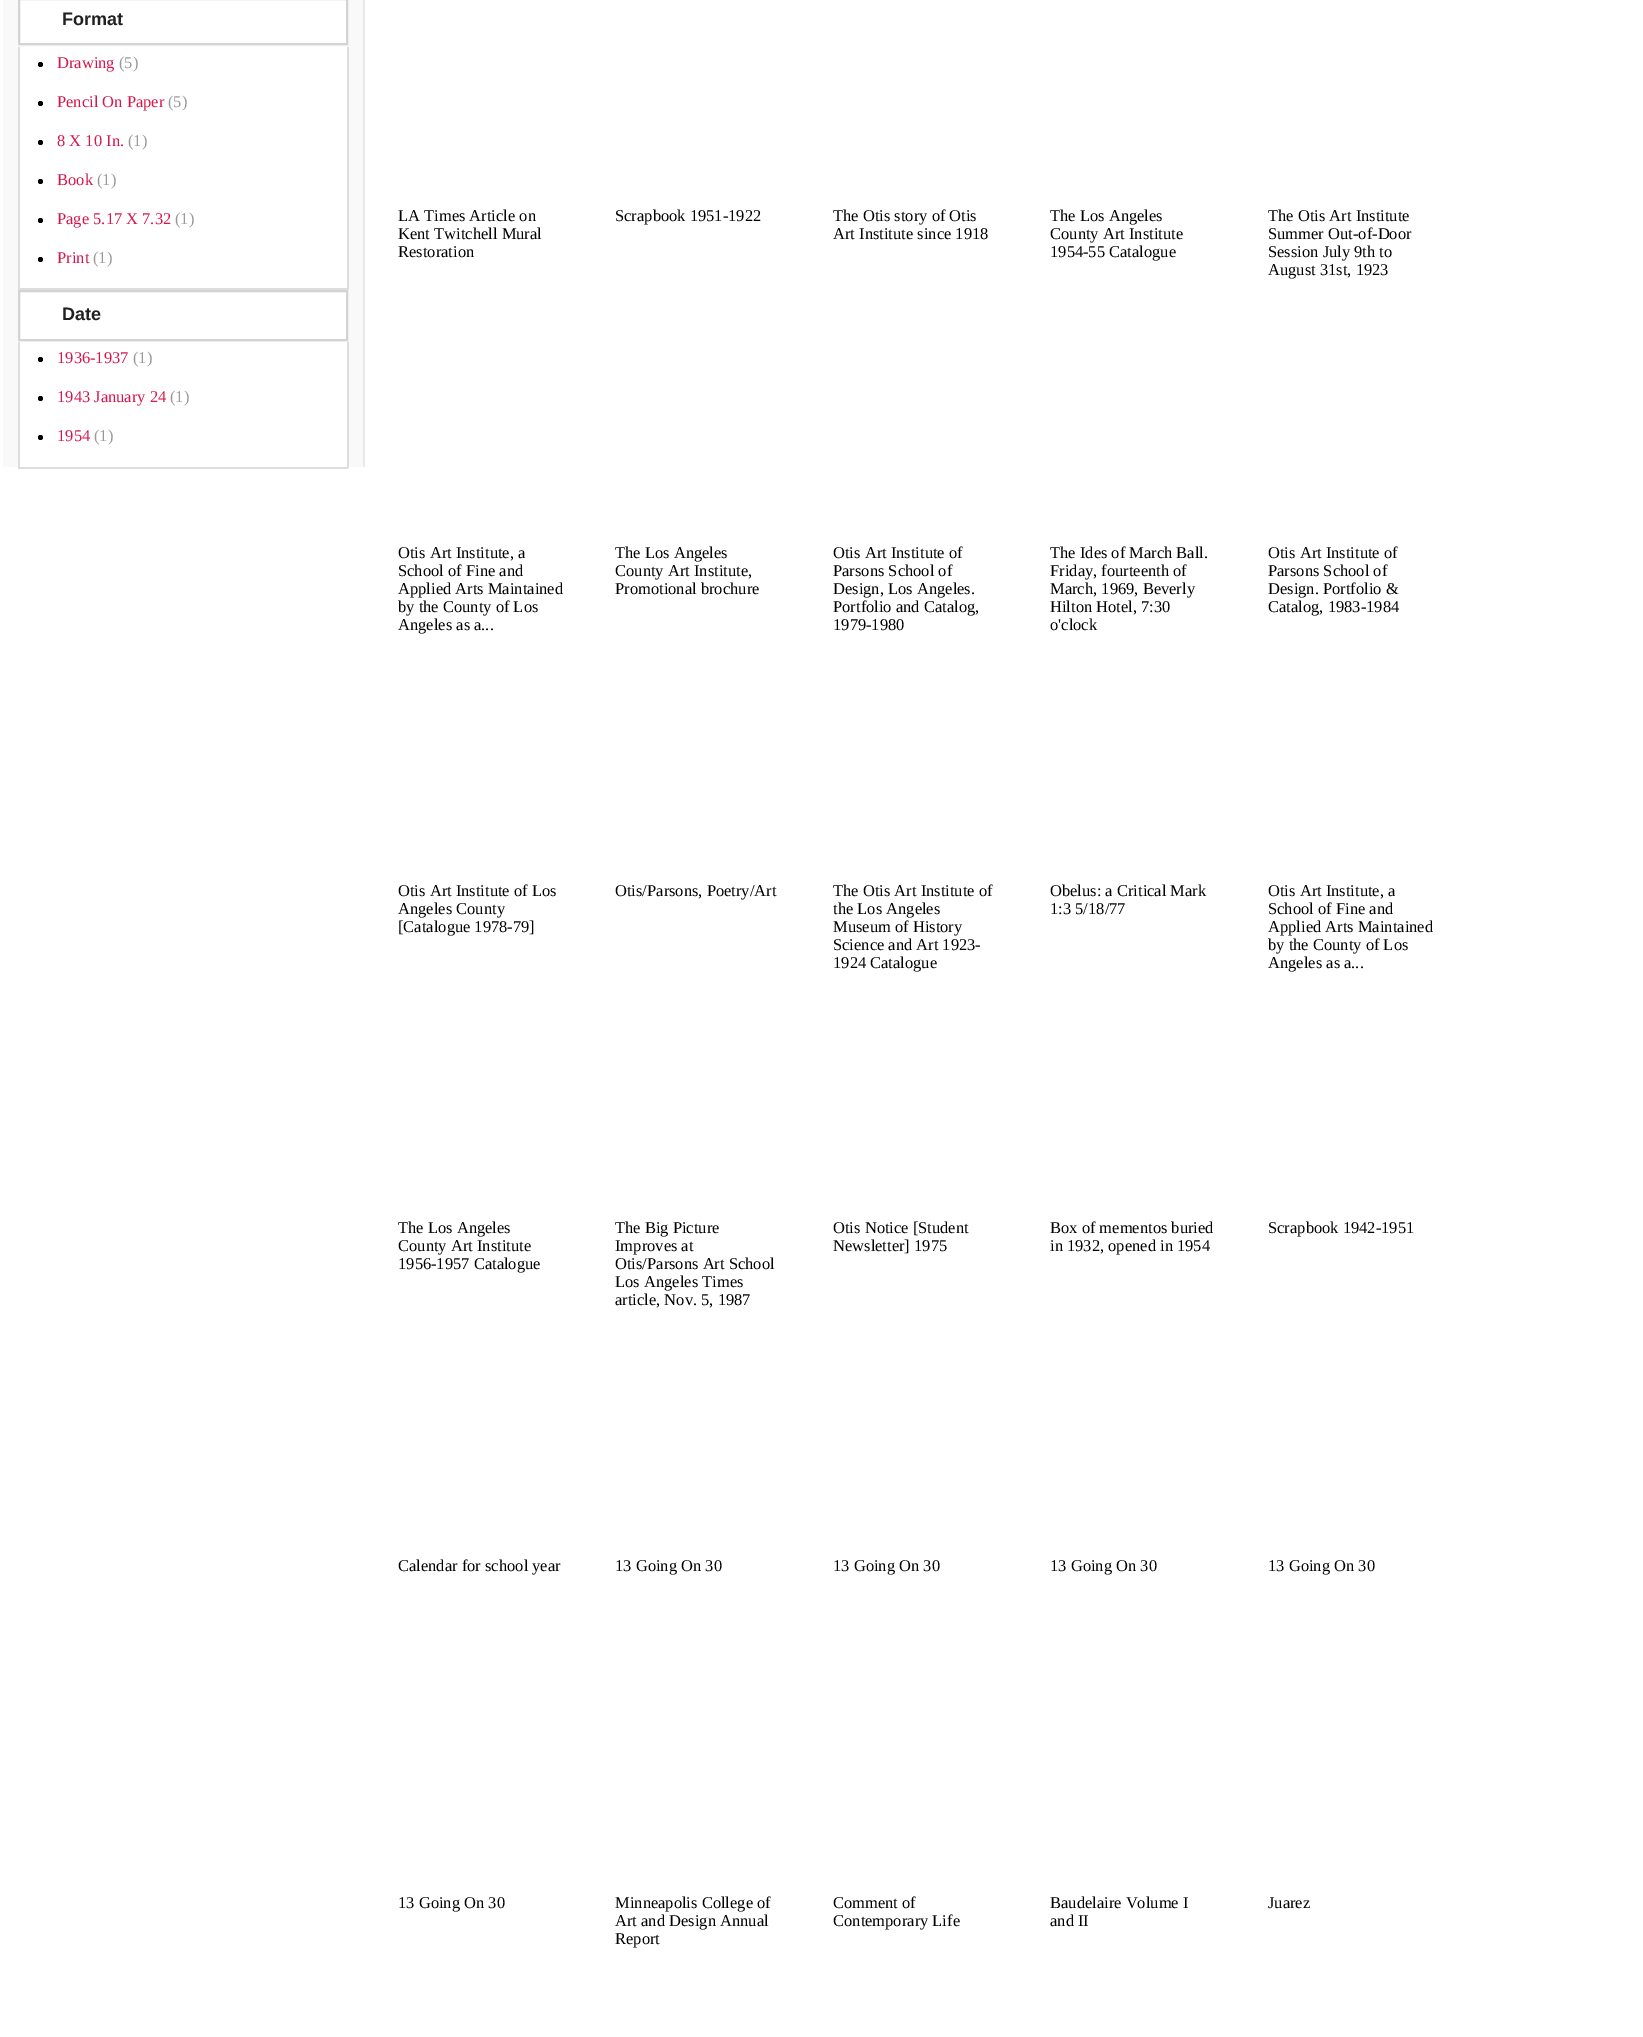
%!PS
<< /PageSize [1643 2037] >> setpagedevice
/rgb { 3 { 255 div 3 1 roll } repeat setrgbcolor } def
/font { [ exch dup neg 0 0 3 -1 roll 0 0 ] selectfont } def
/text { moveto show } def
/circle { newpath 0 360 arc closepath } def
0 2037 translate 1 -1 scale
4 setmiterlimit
255 255 255 rgb
0 0 1643 2037 rectfill
249 249 249 rgb
3 0 360 467 rectfill
233 233 233 rgb
363 0 2 467 rectfill
255 255 255 rgb
19 -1 moveto 328 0 rlineto 0 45 rlineto -328 0 rlineto closepath gsave fill grestore
211 211 211 rgb
2 setlinewidth
stroke
255 255 255 rgb
20 47 327 241 rectfill
221 221 221 rgb
347 47 2 243 rectfill
18 288 330 2 rectfill
18 47 2 243 rectfill
0 0 0 rgb
40.5 64.5 2.5 circle fill
40.5 103.5 2.5 circle fill
40.5 142.5 2.5 circle fill
40.5 181.5 2.5 circle fill
40.5 220.5 2.5 circle fill
40.5 259.5 2.5 circle fill
255 255 255 rgb
19 291 moveto 328 0 rlineto 0 49 rlineto -328 0 rlineto closepath gsave fill grestore
211 211 211 rgb
stroke
255 255 255 rgb
20 342 327 125 rectfill
221 221 221 rgb
347 342 2 126 rectfill
18 467 330 2 rectfill
18 342 2 126 rectfill
0 0 0 rgb
40.5 359.5 2.5 circle fill
40.5 398.5 2.5 circle fill
40.5 437.5 2.5 circle fill
/LiberationSans-Bold 18 font
33 33 33 rgb
(Format) 62 25 text
/LiberationSerif-Regular 16.5 font
215 22 75 rgb
(Drawing) 57 68 text
153 153 153 rgb
(\(5\)) 119 68 text
215 22 75 rgb
(Pencil On Paper) 57 107 text
153 153 153 rgb
(\(5\)) 168 107 text
215 22 75 rgb
(8 X 10 In.) 57 146 text
153 153 153 rgb
(\(1\)) 128 146 text
215 22 75 rgb
(Book) 57 185 text
153 153 153 rgb
(\(1\)) 97 185 text
215 22 75 rgb
(Page 5.17 X 7.32) 57 224 text
153 153 153 rgb
(\(1\)) 175 224 text
215 22 75 rgb
(Print) 57 263 text
153 153 153 rgb
(\(1\)) 93 263 text
/LiberationSans-Bold 18 font
33 33 33 rgb
(Date) 62 320 text
/LiberationSerif-Regular 16.5 font
215 22 75 rgb
(1936-1937) 57 363 text
153 153 153 rgb
(\(1\)) 133 363 text
215 22 75 rgb
(1943 January 24) 57 402 text
153 153 153 rgb
(\(1\)) 170 402 text
215 22 75 rgb
(1954) 57 441 text
153 153 153 rgb
(\(1\)) 94 441 text
0 0 0 rgb
(LA Times Article on) 398 221 text
(Kent Twitchell Mural) 398 239 text
(Restoration) 398 257 text
(Scrapbook 1951-1922) 615 221 text
(The Otis story of Otis) 833 221 text
(Art Institute since 1918) 833 239 text
(The Los Angeles) 1050 221 text
(County Art Institute) 1050 239 text
(1954-55 Catalogue) 1050 257 text
(The Otis Art Institute) 1268 221 text
(Summer Out-of-Door) 1268 239 text
(Session July 9th to) 1268 257 text
(August 31st, 1923) 1268 275 text
(Otis Art Institute, a) 398 558 text
(School of Fine and) 398 576 text
(Applied Arts Maintained) 398 594 text
(by the County of Los) 398 612 text
(Angeles as a...) 398 630 text
(The Los Angeles) 615 558 text
(County Art Institute,) 615 576 text
(Promotional brochure) 615 594 text
(Otis Art Institute of) 833 558 text
(Parsons School of) 833 576 text
(Design, Los Angeles.) 833 594 text
(Portfolio and Catalog,) 833 612 text
(1979-1980) 833 630 text
(The Ides of March Ball.) 1050 558 text
(Friday, fourteenth of) 1050 576 text
(March, 1969, Beverly) 1050 594 text
(Hilton Hotel, 7:30) 1050 612 text
(o'clock) 1050 630 text
(Otis Art Institute of) 1268 558 text
(Parsons School of) 1268 576 text
(Design. Portfolio &) 1268 594 text
(Catalog, 1983-1984) 1268 612 text
(Otis Art Institute of Los) 398 896 text
(Angeles County) 398 914 text
([Catalogue 1978-79]) 398 932 text
(Otis/Parsons, Poetry/Art) 615 896 text
(The Otis Art Institute of) 833 896 text
(the Los Angeles) 833 914 text
(Museum of History) 833 932 text
(Science and Art 1923-) 833 950 text
(1924 Catalogue) 833 968 text
(Obelus: a Critical Mark) 1050 896 text
(1:3 5/18/77) 1050 914 text
(Otis Art Institute, a) 1268 896 text
(School of Fine and) 1268 914 text
(Applied Arts Maintained) 1268 932 text
(by the County of Los) 1268 950 text
(Angeles as a...) 1268 968 text
(The Los Angeles) 398 1233 text
(County Art Institute) 398 1251 text
(1956-1957 Catalogue) 398 1269 text
(The Big Picture) 615 1233 text
(Improves at) 615 1251 text
(Otis/Parsons Art School) 615 1269 text
(Los Angeles Times) 615 1287 text
(article, Nov. 5, 1987) 615 1305 text
(Otis Notice [Student) 833 1233 text
(Newsletter] 1975) 833 1251 text
(Box of mementos buried) 1050 1233 text
(in 1932, opened in 1954) 1050 1251 text
(Scrapbook 1942-1951) 1268 1233 text
(Calendar for school year) 398 1571 text
(13 Going On 30) 615 1571 text
(13 Going On 30) 833 1571 text
(13 Going On 30) 1050 1571 text
(13 Going On 30) 1268 1571 text
(13 Going On 30) 398 1908 text
(Minneapolis College of) 615 1908 text
(Art and Design Annual) 615 1926 text
(Report) 615 1944 text
(Comment of) 833 1908 text
(Contemporary Life) 833 1926 text
(Baudelaire Volume I) 1050 1908 text
(and II) 1050 1926 text
(Juarez) 1268 1908 text
showpage
